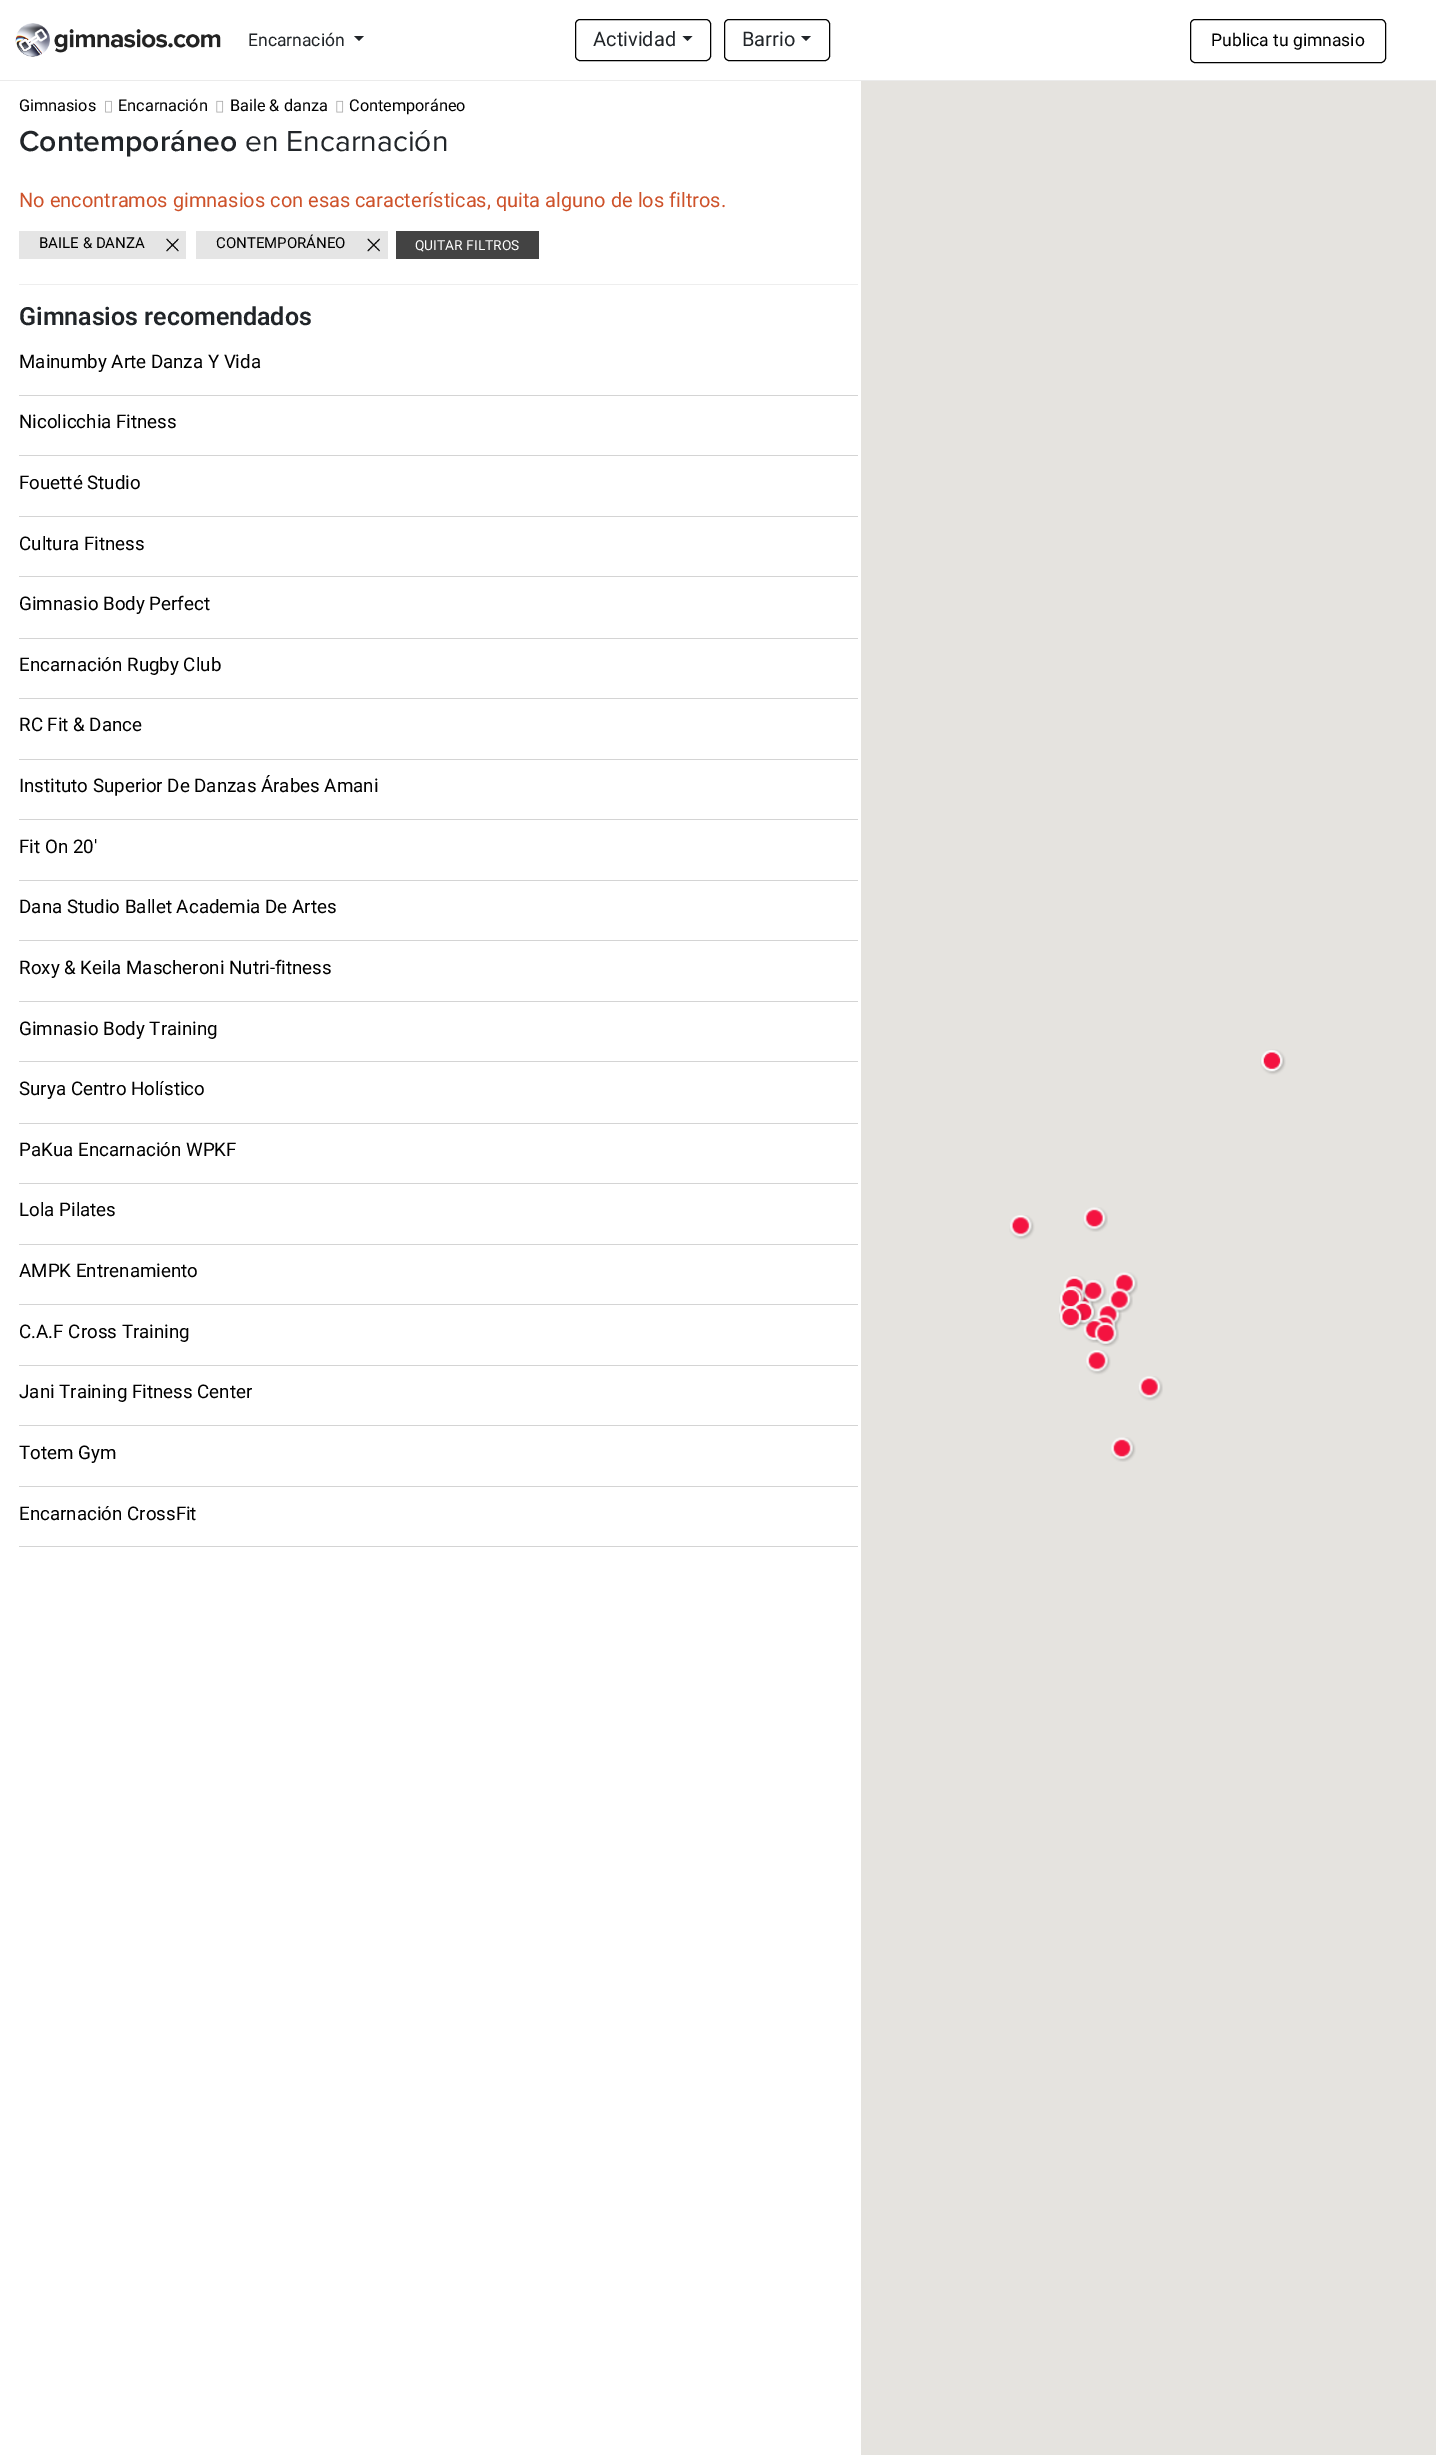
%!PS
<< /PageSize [1436 2455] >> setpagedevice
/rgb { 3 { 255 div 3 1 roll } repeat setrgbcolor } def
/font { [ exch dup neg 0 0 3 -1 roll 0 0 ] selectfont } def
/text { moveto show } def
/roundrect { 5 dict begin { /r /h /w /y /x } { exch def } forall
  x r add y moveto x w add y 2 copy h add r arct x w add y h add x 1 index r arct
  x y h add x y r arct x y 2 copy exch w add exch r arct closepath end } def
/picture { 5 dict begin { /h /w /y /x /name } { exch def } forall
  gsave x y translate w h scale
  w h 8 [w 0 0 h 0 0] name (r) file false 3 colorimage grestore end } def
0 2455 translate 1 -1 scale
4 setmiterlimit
255 255 255 rgb
0 0 1436 2455 rectfill
235 235 235 rgb
0 80 1436 1 rectfill
(img_01.rgb) 15 23 206 34 picture
33 37 41 rgb
354 36 moveto 10 0 rlineto -5 5 rlineto closepath fill
0 0 0 rgb
575.5 19.5 135 41 4.5 roundrect stroke
33 37 41 rgb
682.5 36 moveto 10 0 rlineto -5 5 rlineto closepath fill
0 0 0 rgb
724.5 19.5 105 41 4.5 roundrect stroke
33 37 41 rgb
801 36 moveto 10 0 rlineto -5 5 rlineto closepath fill
0 0 0 rgb
1190.5 19.5 195 43 4.5 roundrect stroke
(img_02.rgb) 105 100 7 13 picture
(img_03.rgb) 216 100 8 13 picture
(img_03.rgb) 336 100 8 13 picture
238 238 238 rgb
19 284 839 1 rectfill
229 229 229 rgb
19 231 167 28 rectfill
(img_04.rgb) 166 238 13 14 picture
196 231 192 28 rectfill
(img_05.rgb) 367 238 13 14 picture
67 67 67 rgb
396 231 143 28 rectfill
212 212 212 rgb
19 395 839 1 rectfill
19 455 839 1 rectfill
19 516 839 1 rectfill
19 576 839 1 rectfill
19 638 839 1 rectfill
19 698 839 1 rectfill
19 759 839 1 rectfill
19 819 839 1 rectfill
19 880 839 1 rectfill
19 940 839 1 rectfill
19 1001 839 1 rectfill
19 1061 839 1 rectfill
19 1123 839 1 rectfill
19 1183 839 1 rectfill
19 1244 839 1 rectfill
19 1304 839 1 rectfill
19 1365 839 1 rectfill
19 1425 839 1 rectfill
19 1486 839 1 rectfill
19 1546 839 1 rectfill
229 227 223 rgb
861 81 575 2374 rectfill
(img_06.rgb) 1260 1049 26 26 picture
(img_07.rgb) 1009 1215 26 25 picture
(img_08.rgb) 1083 1207 25 25 picture
(img_16.rgb) 1074 1293 21 24 picture
(img_18.rgb) 1097 1303 25 25 picture
(img_10.rgb) 1082 1279 25 26 picture
(img_15.rgb) 1059 1299 23 24 picture
(img_09.rgb) 1063 1275 25 25 picture
(img_11.rgb) 1113 1272 25 25 picture
(img_12.rgb) 1062 1285 25 26 picture
(img_13.rgb) 1059 1287 26 24 picture
(img_14.rgb) 1108 1288 25 25 picture
(img_20.rgb) 1093 1314 25 25 picture
(img_21.rgb) 1083 1318 25 25 picture
(img_22.rgb) 1094 1322 25 25 picture
(img_17.rgb) 1072 1300 25 26 picture
(img_19.rgb) 1059 1305 26 26 picture
(img_23.rgb) 1086 1350 25 25 picture
(img_24.rgb) 1138 1376 25 25 picture
(img_25.rgb) 1111 1437 25 25 picture
/Roboto-Regular 17.5 font
33 37 41 rgb
(Encarnación) 248 46 text
/Roboto-Regular 20 font
(Actividad) 593 46 text
(Barrio) 742 46 text
/Roboto-Regular 17.5 font
0 0 0 rgb
(Publica tu gimnasio) 1211 46 text
/Roboto-Regular 16.25 font
(Gimnasios) 19 111 text
(Encarnación) 118 111 text
(Baile & danza) 230 111 text
(Contemporáneo) 349 111 text
/ProximaNova-SemiBold 30 font
33 37 41 rgb
(Contemporáneo) 19 151 text
/ProximaNova-Regular 30 font
(en Encarnación) 245 151 text
/Roboto-Regular 20 font
206 82 42 rgb
(No encontramos gimnasios con esas características, quita alguno de los filtros.) 19 207 text
/Roboto-Regular 15 font
0 0 0 rgb
(BAILE & DANZA) 39 248 text
(CONTEMPORÁNEO) 216 248 text
/Roboto-Regular 13.75 font
255 255 255 rgb
(QUITAR FILTROS) 415 250 text
/Roboto-SemiBold 25 font
33 37 41 rgb
(Gimnasios recomendados) 19 325 text
/Roboto-Regular 18.75 font
0 0 0 rgb
(Mainumby Arte Danza Y Vida) 19 368 text
(Nicolicchia Fitness) 19 428 text
(Fouetté Studio) 19 489 text
(Cultura Fitness) 19 550 text
(Gimnasio Body Perfect) 19 610 text
(Encarnación Rugby Club) 19 671 text
(RC Fit & Dance) 19 731 text
(Instituto Superior De Danzas Árabes Amani) 19 792 text
(Fit On 20') 19 853 text
(Dana Studio Ballet Academia De Artes) 19 913 text
(Roxy & Keila Mascheroni Nutri-fitness) 19 974 text
(Gimnasio Body Training) 19 1035 text
(Surya Centro Holístico) 19 1095 text
(PaKua Encarnación WPKF) 19 1156 text
(Lola Pilates) 19 1216 text
(AMPK Entrenamiento) 19 1277 text
(C.A.F Cross Training) 19 1338 text
(Jani Training Fitness Center) 19 1398 text
(Totem Gym) 19 1459 text
(Encarnación CrossFit) 19 1520 text
showpage
